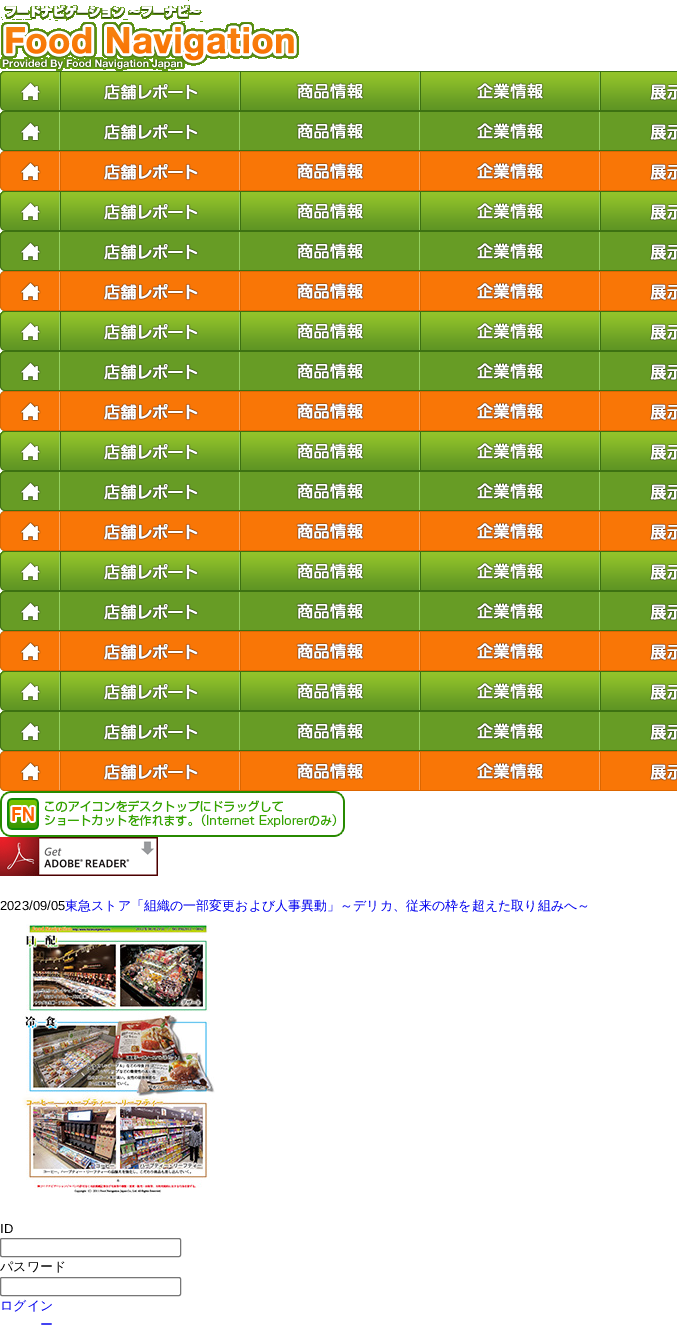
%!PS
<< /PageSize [677 1325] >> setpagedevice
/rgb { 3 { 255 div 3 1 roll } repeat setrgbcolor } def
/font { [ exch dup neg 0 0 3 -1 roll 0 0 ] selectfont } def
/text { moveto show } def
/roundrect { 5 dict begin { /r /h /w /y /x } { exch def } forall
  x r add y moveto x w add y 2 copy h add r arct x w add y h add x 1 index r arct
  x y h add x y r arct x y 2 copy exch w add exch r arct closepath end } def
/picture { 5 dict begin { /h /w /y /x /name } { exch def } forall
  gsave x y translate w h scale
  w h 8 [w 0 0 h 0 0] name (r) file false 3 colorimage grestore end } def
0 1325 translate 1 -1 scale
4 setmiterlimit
255 255 255 rgb
0 0 677 1325 rectfill
(img_01.rgb) 0 0 299 71 picture
(img_02.rgb) 0 71 677 120 picture
(img_02.rgb) 0 191 677 120 picture
(img_02.rgb) 0 311 677 120 picture
(img_02.rgb) 0 431 677 120 picture
(img_02.rgb) 0 551 677 120 picture
(img_02.rgb) 0 671 677 120 picture
(img_03.rgb) 0 791 345 46 picture
(img_04.rgb) 0 837 158 39 picture
(img_05.rgb) 22 924 193 272 picture
118 118 118 rgb
0.5 1238.5 180 18 1.5 roundrect stroke
0.5 1277.5 180 18 1.5 roundrect stroke
/LiberationSans-Regular 13 font
0 0 0 rgb
(2023/09/05) 0 910 text
/WenQuanYiZenHei-Medium 13 font
0 0 238 rgb
(東急ストア「組織の一部変更および人事異動」～デリカ、従来の枠を超えた取り組みへ～) 65 910 text
/LiberationSans-Regular 13 font
0 0 0 rgb
(ID) 0 1233 text
/WenQuanYiZenHei-Medium 13 font
(パスワード) 0 1271 text
0 0 238 rgb
(ログイン) 0 1310 text
(ー) 40 1329 text
showpage
